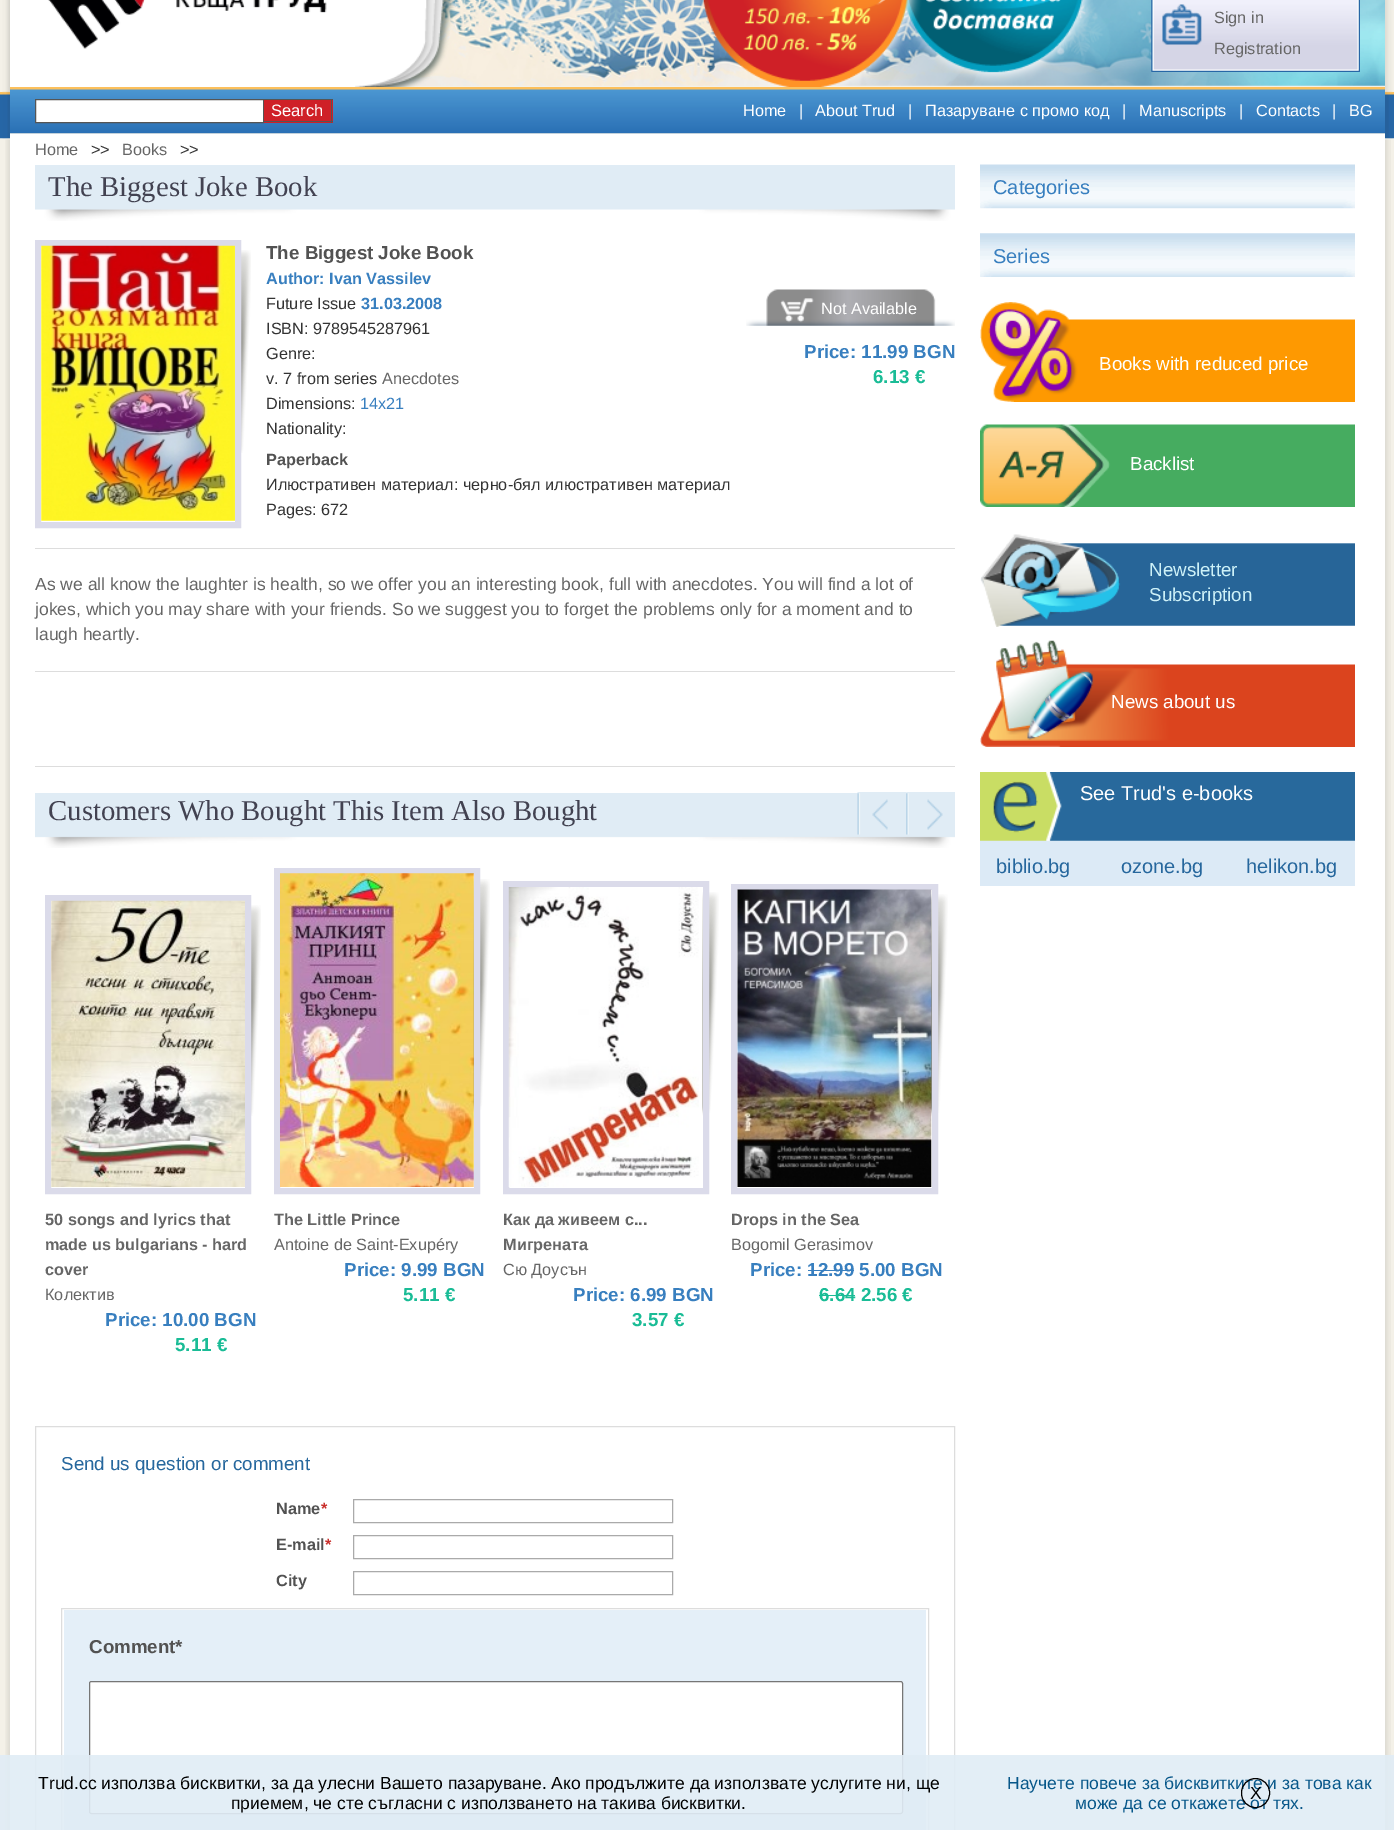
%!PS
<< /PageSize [1394 1830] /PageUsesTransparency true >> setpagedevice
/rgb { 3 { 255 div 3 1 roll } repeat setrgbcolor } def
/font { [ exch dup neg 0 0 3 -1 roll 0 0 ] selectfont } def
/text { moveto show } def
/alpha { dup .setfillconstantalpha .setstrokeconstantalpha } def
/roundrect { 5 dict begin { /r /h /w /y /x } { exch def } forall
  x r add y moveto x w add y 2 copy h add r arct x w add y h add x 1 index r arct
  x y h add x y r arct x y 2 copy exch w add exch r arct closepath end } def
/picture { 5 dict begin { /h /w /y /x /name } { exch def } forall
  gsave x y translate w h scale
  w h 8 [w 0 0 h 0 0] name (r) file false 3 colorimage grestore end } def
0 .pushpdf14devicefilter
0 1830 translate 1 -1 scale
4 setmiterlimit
244 241 232 rgb
0 0 1394 1830 rectfill
(img_01.rgb) 0 92 1394 47 picture
(img_02.rgb) 2 0 8 139 picture
(img_03.rgb) 1385 0 8 139 picture
(img_05.rgb) 385 0 1000 86 picture
(img_04.rgb) 703 0 390 87 picture
10 92 1375 42 rectfill
(img_06.rgb) 10 0 445 87 picture
(img_07.rgb) 1151 0 209 72 picture
(img_08.rgb) 10 87 1375 47 picture
255 255 255 rgb
35.5 99.5 moveto 228 0 rlineto 0 23 rlineto -228 0 rlineto closepath gsave fill grestore
85 85 85 rgb
stroke
207 32 39 rgb
264 100 69 23 rectfill
85 85 85 rgb
264 99 69 1 rectfill
331 99 1 24 rectfill
264 121 69 1 rectfill
(img_09.rgb) 5 139 5 1691 picture
(img_10.rgb) 1385 139 6 1691 picture
255 255 255 rgb
10 134 1375 19 rectfill
10 153 1375 1677 rectfill
224 236 245 rgb
35 165 920 44 rectfill
(img_11.rgb) 35 209 920 12 picture
(img_12.rgb) 241 250 10 203 picture
219 219 234 rgb
6 setlinewidth
38 243 200 282 rectstroke
(img_13.rgb) 41 245 194 276 picture
(img_14.rgb) 746 289 209 37 picture
221 221 221 rgb
35 548 920 1 rectfill
35 671 920 1 rectfill
35 766 920 1 rectfill
224 236 245 rgb
35 793 920 43 rectfill
(img_15.rgb) 857 792 50 43 picture
(img_16.rgb) 906 792 49 43 picture
(img_17.rgb) 35 836 920 12 picture
(img_18.rgb) 251 905 10 211 picture
219 219 234 rgb
48 898 200 293 rectstroke
(img_19.rgb) 51 900 194 287 picture
(img_20.rgb) 473 879 17 233 picture
277 871 200 320 rectstroke
(img_21.rgb) 280 873 194 314 picture
(img_22.rgb) 702 892 17 224 picture
506 884 200 307 rectstroke
(img_23.rgb) 508 887 195 300 picture
(img_24.rgb) 931 894 17 222 picture
734 887 201 304 rectstroke
(img_25.rgb) 737 889 195 298 picture
26 188 150 rgb
819 1295 36 1 rectfill
221 221 221 rgb
1 setlinewidth
35.5 1426.5 919 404 rectstroke
170 170 170 rgb
353.5 1499.5 319 23 rectstroke
353.5 1535.5 319 23 rectstroke
353.5 1571.5 319 23 rectstroke
221 221 221 rgb
61.5 1608.5 867 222 rectstroke
228 239 248 rgb
64 1610 862 220 rectfill
255 255 255 rgb
89.5 1681.5 813 132 2 roundrect gsave fill grestore
118 118 118 rgb
stroke
(img_26.rgb) 980 164 375 45 picture
(img_27.rgb) 980 233 375 44 picture
(img_28.rgb) 980 302 375 100 picture
(img_29.rgb) 980 424 375 83 picture
(img_30.rgb) 980 534 375 93 picture
(img_31.rgb) 980 640 375 107 picture
220 234 246 rgb
980 840 375 46 rectfill
(img_32.rgb) 980 772 375 69 picture
0.9 alpha
224 236 245 rgb
0 1755 1394 75 rectfill
/LiberationSans-Regular 16.25 font
1 alpha
102 102 102 rgb
(Sign in) 1214 23 text
(Registration) 1214 54 text
/LiberationSans-Regular 16.5 font
255 255 255 rgb
(Search) 271 116 text
/LiberationSans-Regular 16.25 font
(Home) 743 116 text
(|) 799 116 text
(About Trud) 815 116 text
(|) 908 116 text
(Пазаруване с промо код) 925 116 text
(|) 1122 116 text
(Manuscripts) 1139 116 text
(|) 1239 116 text
(Contacts) 1256 116 text
(|) 1332 116 text
(BG) 1349 116 text
102 102 102 rgb
(Home) 35 155 text
51 51 51 rgb
(>>) 91 155 text
102 102 102 rgb
(Books) 122 155 text
51 51 51 rgb
(>>) 180 155 text
/LiberationSerif-Regular 28.75 font
66 66 81 rgb
(The Biggest Joke Book) 48 196 text
/LiberationSans-Bold 18.75 font
82 82 82 rgb
(The Biggest Joke Book) 266 259 text
/LiberationSans-Bold 16.25 font
56 127 191 rgb
(Author: Ivan Vassilev) 266 284 text
/LiberationSans-Regular 16.25 font
51 51 51 rgb
(Future Issue) 266 309 text
/LiberationSans-Bold 16.25 font
56 127 191 rgb
(31.03.2008) 361 309 text
/LiberationSans-Regular 16.25 font
51 51 51 rgb
(ISBN: 9789545287961) 266 334 text
(Genre:) 266 359 text
(v. 7 from series) 266 384 text
102 102 102 rgb
(Аnecdotes) 382 384 text
51 51 51 rgb
(Dimensions:) 266 409 text
56 127 191 rgb
(14x21) 360 409 text
51 51 51 rgb
(Nationality:) 266 434 text
/LiberationSans-Bold 16.25 font
82 82 82 rgb
(Paperback) 266 465 text
/LiberationSans-Regular 16.25 font
51 51 51 rgb
(Илюстративен материал: черно-бял илюстративен материал) 266 490 text
(Pages: 672) 266 515 text
255 255 255 rgb
(Not Available) 821 314 text
/LiberationSans-Bold 18.75 font
56 127 191 rgb
(Price: 11.99 BGN) 804 358 text
26 188 150 rgb
(6.13 €) 873 383 text
/LiberationSans-Regular 17.5 font
102 102 102 rgb
(As we all know the laughter is health, so we offer you an interesting book, full with anecdotes. You will find a lot of) 35 590 text
(jokes, which you may share with your friends. So we suggest you to forget the problems only for a moment and to) 35 615 text
(laugh heartly.) 35 640 text
/LiberationSerif-Regular 28.75 font
66 66 81 rgb
(Customers Who Bought This Item Also Bought) 48 820 text
/LiberationSans-Bold 16.25 font
102 102 102 rgb
(50 songs and lyrics that) 45 1225 text
(made us bulgarians - hard) 45 1250 text
(cover) 45 1275 text
/LiberationSans-Regular 16.25 font
(Колектив) 45 1300 text
/LiberationSans-Bold 18.75 font
56 127 191 rgb
(Price: 10.00 BGN) 105 1326 text
26 188 150 rgb
(5.11 €) 175 1351 text
/LiberationSans-Bold 16.25 font
102 102 102 rgb
(The Little Prince) 274 1225 text
/LiberationSans-Regular 16.25 font
(Antoine de Saint-Exupéry) 274 1250 text
/LiberationSans-Bold 18.75 font
56 127 191 rgb
(Price: 9.99 BGN) 344 1276 text
26 188 150 rgb
(5.11 €) 403 1301 text
/LiberationSans-Bold 16.25 font
102 102 102 rgb
(Как да живеем с...) 503 1225 text
(Мигрената) 503 1250 text
/LiberationSans-Regular 16.25 font
(Сю Доусън) 503 1275 text
/LiberationSans-Bold 18.75 font
56 127 191 rgb
(Price: 6.99 BGN) 573 1301 text
26 188 150 rgb
(3.57 €) 632 1326 text
/LiberationSans-Bold 16.25 font
102 102 102 rgb
(Drops in the Sea) 731 1225 text
/LiberationSans-Regular 16.25 font
(Bogomil Gerasimov) 731 1250 text
/LiberationSans-Bold 18.75 font
56 127 191 rgb
(Price: 12.99 5.00 BGN) 750 1276 text
57 127 191 rgb
808 1270 46 1 rectfill
26 188 150 rgb
(6.64 2.56 €) 819 1301 text
/LiberationSans-Regular 18.75 font
38 103 157 rgb
(Send us question or comment) 61 1470 text
/LiberationSans-Bold 16.25 font
82 82 82 rgb
(Name) 276 1514 text
201 48 44 rgb
(*) 321 1514 text
82 82 82 rgb
(E-mail) 276 1550 text
201 48 44 rgb
(*) 325 1550 text
82 82 82 rgb
(City) 276 1586 text
/LiberationSans-Bold 18.75 font
(Comment*) 89 1653 text
/LiberationSans-Regular 20 font
56 127 191 rgb
(Categories) 993 194 text
(Series) 993 263 text
/LiberationSans-Regular 18.75 font
255 255 255 rgb
(Books with reduced price) 1099 370 text
(Backlist) 1130 470 text
205 241 248 rgb
(Newsletter) 1149 576 text
(Subscription) 1149 601 text
255 255 255 rgb
(News about us) 1111 708 text
/LiberationSans-Regular 20 font
(See Trud's e-books) 1080 800 text
38 103 157 rgb
(biblio.bg) 996 873 text
(ozone.bg) 1121 873 text
(helikon.bg) 1246 873 text
/LiberationSans-Regular 17.5 font
0 0 0 rgb
(Trud.cc използва бисквитки, за да улесни Вашето пазаруване. Ако продължите да използвате услугите ни, ще) 38 1789 text
7 87 137 rgb
(Научете повече за бисквитките и за това как) 1007 1789 text
(може да се откажете от тях.) 1075 1809 text
0 0 0 rgb
1241.5 1778.5 28 29 14 roundrect stroke
(X) 1250 1799 text
(приемем, че сте съгласни с използването на такива бисквитки.) 231 1809 text
.poppdf14devicefilter showpage
